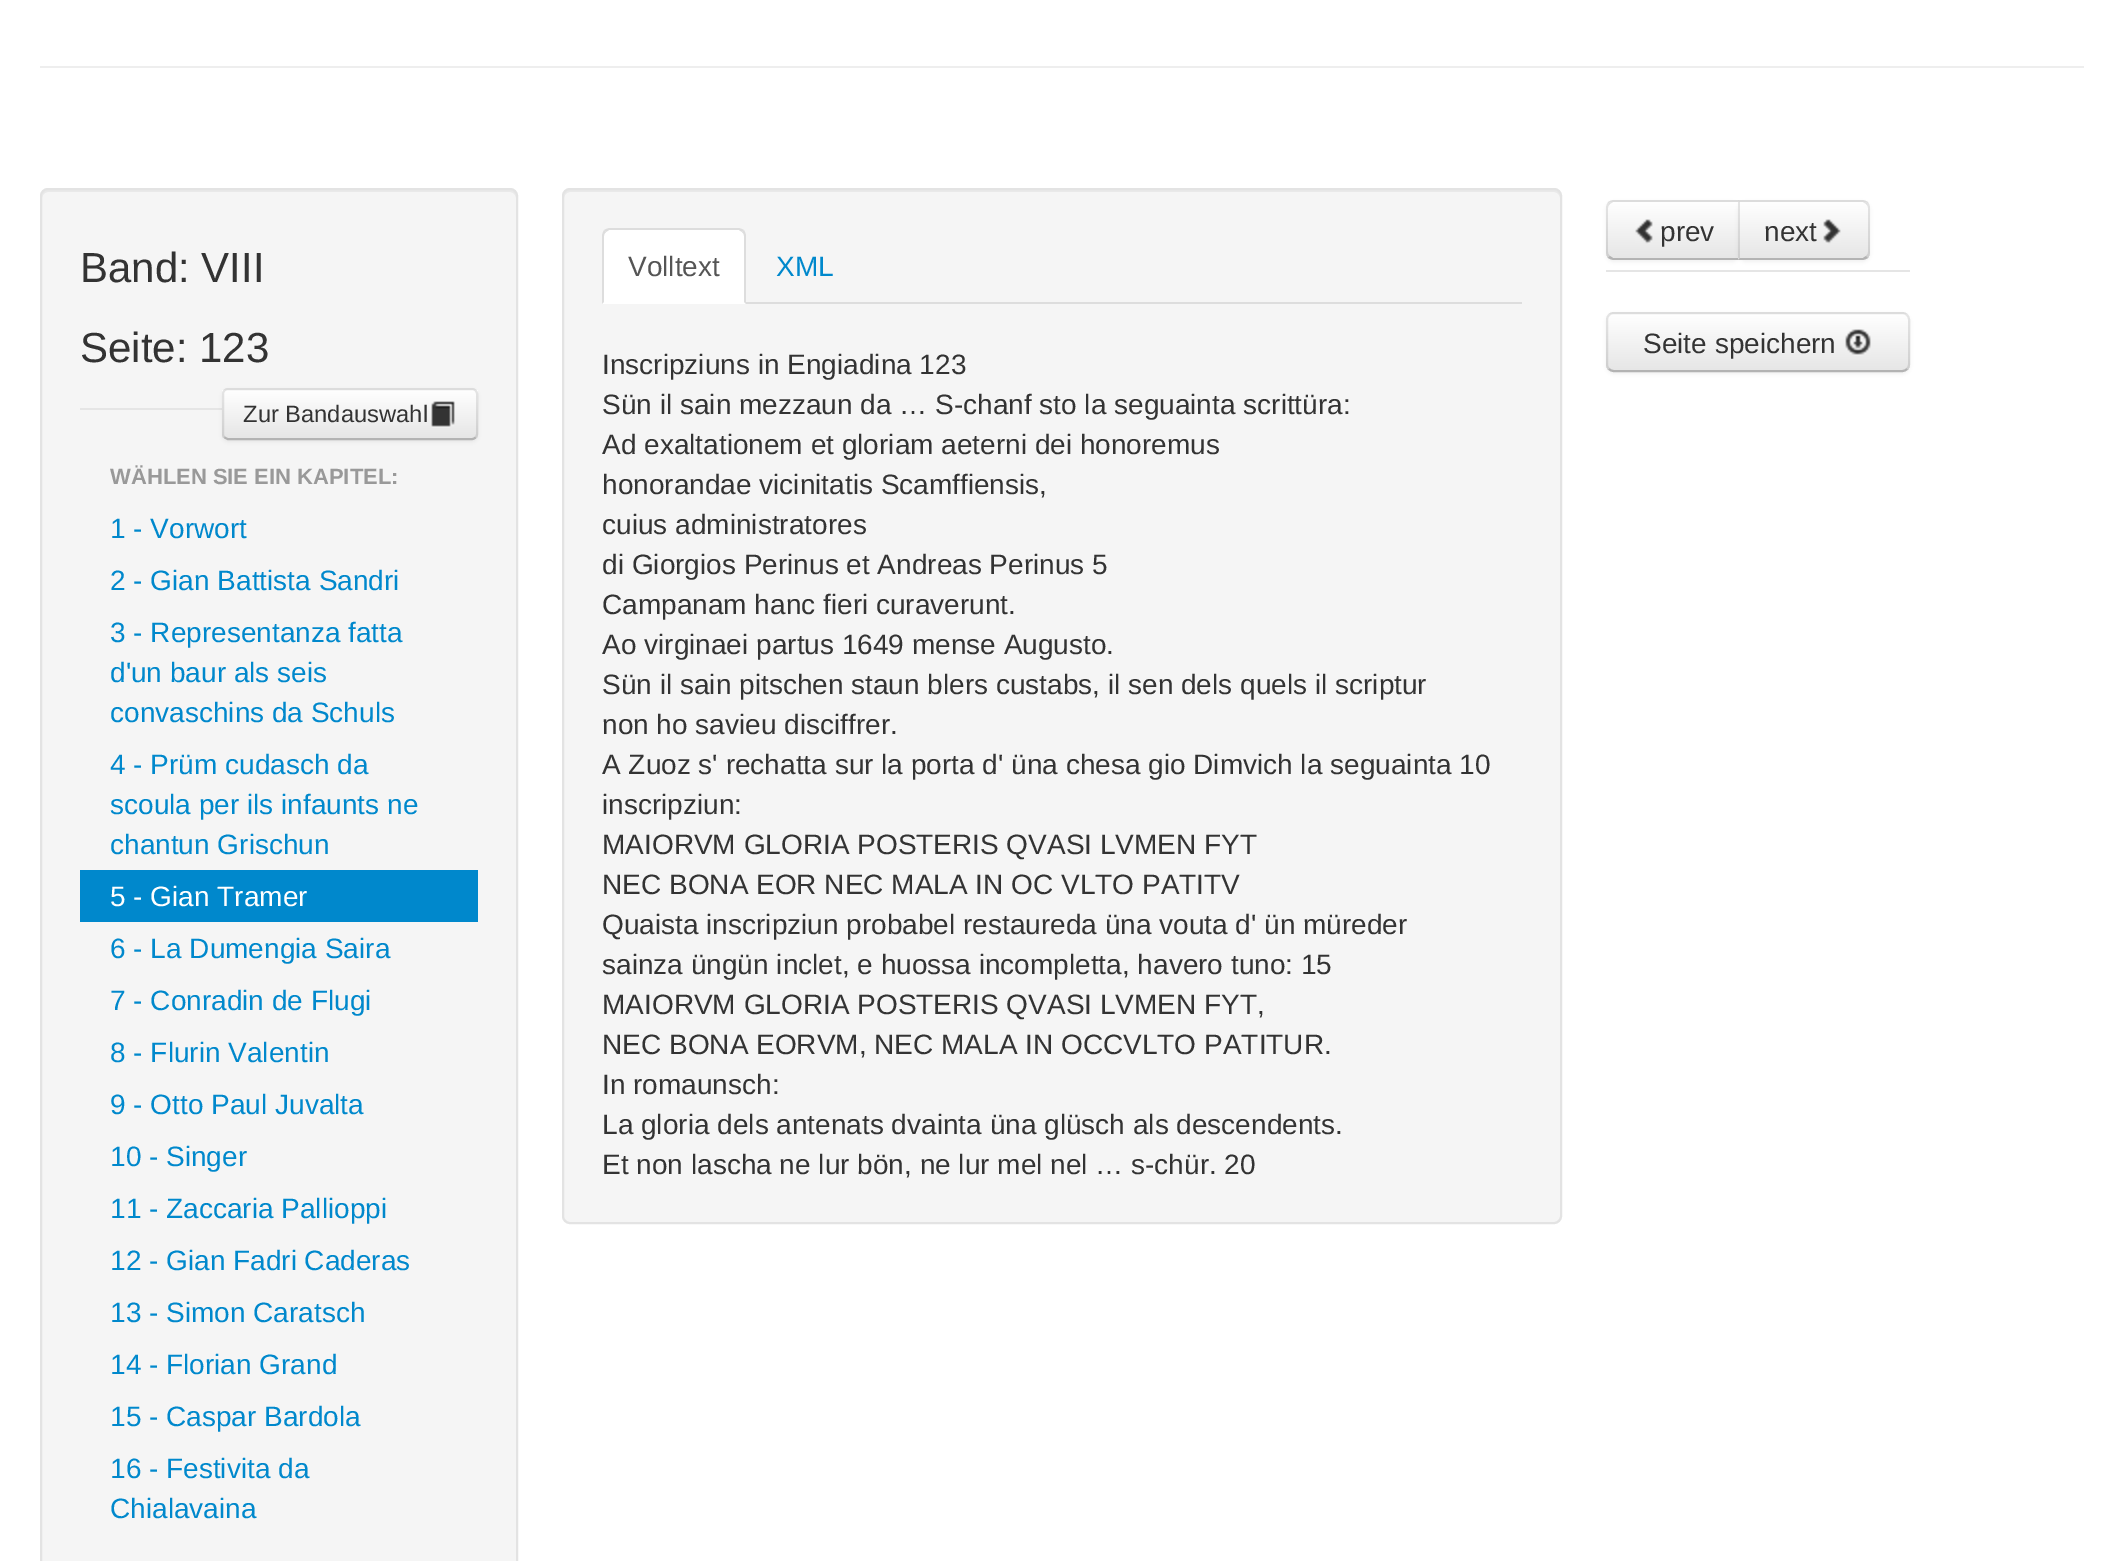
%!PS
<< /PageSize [2124 1561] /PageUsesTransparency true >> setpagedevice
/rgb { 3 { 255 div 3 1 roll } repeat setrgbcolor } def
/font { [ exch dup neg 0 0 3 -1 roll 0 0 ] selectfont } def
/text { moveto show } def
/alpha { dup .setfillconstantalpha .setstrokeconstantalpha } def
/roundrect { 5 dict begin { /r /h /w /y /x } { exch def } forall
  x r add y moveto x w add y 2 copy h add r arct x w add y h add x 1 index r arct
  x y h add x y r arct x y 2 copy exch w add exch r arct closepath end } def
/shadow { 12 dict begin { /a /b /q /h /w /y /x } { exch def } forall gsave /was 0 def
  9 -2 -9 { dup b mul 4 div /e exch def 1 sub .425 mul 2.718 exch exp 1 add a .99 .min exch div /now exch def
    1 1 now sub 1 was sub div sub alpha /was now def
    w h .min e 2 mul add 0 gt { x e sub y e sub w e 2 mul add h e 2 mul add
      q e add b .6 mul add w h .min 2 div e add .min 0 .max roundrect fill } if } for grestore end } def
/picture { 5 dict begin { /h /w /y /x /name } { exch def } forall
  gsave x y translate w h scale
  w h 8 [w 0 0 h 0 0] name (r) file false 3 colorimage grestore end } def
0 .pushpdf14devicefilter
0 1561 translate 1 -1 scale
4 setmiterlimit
255 255 255 rgb
0 0 2124 1561 rectfill
238 238 238 rgb
40 66 2044 2 rectfill
245 245 245 rgb
40 188 478 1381 8 roundrect fill
233 233 233 rgb
48 192 moveto 462 0 rlineto 3 0 6 3 6 6 rcurveto 0 -4 -1 -8 -6 -8 rcurveto -462 0 rlineto -5 0 -6 4 -6 8 rcurveto 0 -3 3 -6 6 -6 rcurveto closepath fill
227 227 227 rgb
2 setlinewidth
41 189 476 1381 7 roundrect stroke
229 229 229 rgb
80 408 142 2 rectfill
0 0 0 rgb
222 390 256 52 6 2 0.05 shadow
245 245 245 rgb
222 388 256 52 6 roundrect fill
gsave
222 388 256 52 6 roundrect clip newpath
gsave 222 390 moveto 256 0 rlineto 0 48 rlineto -256 0 rlineto closepath clip newpath
<< /ShadingType 2 /ColorSpace /DeviceRGB /Coords [350 390 350 438] /Extend [true true] /Function << /FunctionType 2 /Domain [0 1] /C0 [1 1 1] /C1 [0.902 0.902 0.902] /N 1 >> >> shfill grestore
grestore
179 179 179 rgb
475.5 437.5 moveto -1 1 -2 1.5 -3.5 1.5 rcurveto -244.5 0 rlineto -3 -1.5 rlineto stroke
0.1 alpha
0 0 0 rgb
224.5 437.5 moveto -1 -1 -1.5 -2 -1.5 -3.5 rcurveto 0 -40 rlineto 0 -1.5 0.5 -2.5 1.5 -3.5 rcurveto 1 -1 2 -1.5 3.5 -1.5 rcurveto 244 0 rlineto 1.5 0 2.5 0.5 3.5 1.5 rcurveto 1 1 1.5 2 1.5 3.5 rcurveto 0 40 rlineto 0 1.5 -0.5 2.5 -1.5 3.5 rcurveto stroke
1 alpha
(img_01.rgb) 431 401 24 27 picture
0 136 204 rgb
80 870 398 52 rectfill
245 245 245 rgb
562 188 1000 1036 8 roundrect fill
233 233 233 rgb
570 192 moveto 984 0 rlineto 3 0 6 3 6 6 rcurveto 0 -4 -1 -8 -6 -8 rcurveto -984 0 rlineto -5 0 -6 4 -6 8 rcurveto 0 -3 3 -6 6 -6 rcurveto closepath fill
227 227 227 rgb
563 189 998 1034 7 roundrect stroke
221 221 221 rgb
746 302 776 2 rectfill
255 255 255 rgb
610 228 moveto 128 0 rlineto 4.5 0 8 3.5 8 8 rcurveto 0 68 rlineto -144 0 rlineto 0 -68 rlineto 0 -4.5 3.5 -8 8 -8 rcurveto closepath fill
221 221 221 rgb
610 228 moveto -2 0 -4 1 -6 2 rcurveto 2 2 rlineto 3 -2 rlineto 130 0 rlineto 3 2 rlineto 2 -2 rlineto -2 -1 -4 -2 -6 -2 rcurveto closepath fill
746 304 moveto 0 -68 rlineto 0 -2 -1 -4 -2 -6 rcurveto -2 2 rlineto 1 1 2 2 2 4 rcurveto 0 66 rlineto closepath fill
602 304 moveto 2 -2 rlineto 0 -66 rlineto 0 -2 1 -3 2 -4 rcurveto -2 -2 rlineto -1 2 -2 4 -2 6 rcurveto closepath fill
229 229 229 rgb
1606 270 304 2 rectfill
0 0 0 rgb
1606 202 134 60 8 2 0.05 shadow
245 245 245 rgb
1614 200 moveto 126 0 rlineto 0 60 rlineto -126 0 rlineto -4.5 0 -8 -3.5 -8 -8 rcurveto 0 -44 rlineto 0 -4.5 3.5 -8 8 -8 rcurveto closepath fill
gsave
1614 200 moveto 126 0 rlineto 0 60 rlineto -126 0 rlineto -4.5 0 -8 -3.5 -8 -8 rcurveto 0 -44 rlineto 0 -4.5 3.5 -8 8 -8 rcurveto closepath clip newpath
gsave 1606 202 moveto 132 0 rlineto 0 56 rlineto -132 0 rlineto closepath clip newpath
<< /ShadingType 2 /ColorSpace /DeviceRGB /Coords [1673 202 1673 258] /Extend [true true] /Function << /FunctionType 2 /Domain [0 1] /C0 [1 1 1] /C1 [0.902 0.902 0.902] /N 1 >> >> shfill grestore
grestore
0.1 alpha
0 0 0 rgb
1614 200 moveto -2 0 -4 1 -6 2 rcurveto 2 2 rlineto 3 -2 rlineto 125 0 rlineto 2 -2 rlineto closepath fill
1 alpha
179 179 179 rgb
1740 260 moveto -2 -2 rlineto -125 0 rlineto -3 -2 rlineto -2 2 rlineto 2 1 4 2 6 2 rcurveto closepath fill
0.1 alpha
0 0 0 rgb
1606 208 moveto 0 44 rlineto 0 2 1 4 2 6 rcurveto 2 -2 rlineto -1 -1 -2 -2 -2 -4 rcurveto 0 -44 rlineto 0 -2 1 -3 2 -4 rcurveto -2 -2 rlineto -1 2 -2 4 -2 6 rcurveto closepath fill
1 alpha
(img_02.rgb) 1635 219 18 25 picture
1738 202 132 60 8 2 0.05 shadow
245 245 245 rgb
1738 200 moveto 124 0 rlineto 4.5 0 8 3.5 8 8 rcurveto 0 44 rlineto 0 4.5 -3.5 8 -8 8 rcurveto -124 0 rlineto closepath fill
gsave
1738 200 moveto 124 0 rlineto 4.5 0 8 3.5 8 8 rcurveto 0 44 rlineto 0 4.5 -3.5 8 -8 8 rcurveto -124 0 rlineto closepath clip newpath
gsave 1738 202 moveto 132 0 rlineto 0 56 rlineto -132 0 rlineto closepath clip newpath
<< /ShadingType 2 /ColorSpace /DeviceRGB /Coords [1804 202 1804 258] /Extend [true true] /Function << /FunctionType 2 /Domain [0 1] /C0 [1 1 1] /C1 [0.902 0.902 0.902] /N 1 >> >> shfill grestore
grestore
0.1 alpha
0 0 0 rgb
1738 200 moveto 2 2 rlineto 123 0 rlineto 3 2 rlineto 2 -2 rlineto -2 -1 -4 -2 -6 -2 rcurveto closepath fill
1870 252 moveto 0 -44 rlineto 0 -2 -1 -4 -2 -6 rcurveto -2 2 rlineto 1 1 2 2 2 4 rcurveto 0 44 rlineto 0 2 -1 3 -2 4 rcurveto 2 2 rlineto 1 -2 2 -4 2 -6 rcurveto closepath fill
1 alpha
179 179 179 rgb
1862 260 moveto 2 0 4 -1 6 -2 rcurveto -2 -2 rlineto -3 2 rlineto -123 0 rlineto -2 2 rlineto closepath fill
0.1 alpha
0 0 0 rgb
1738 200 moveto 0 60 rlineto 2 -2 rlineto 0 -56 rlineto closepath fill
1 alpha
(img_03.rgb) 1823 219 18 25 picture
1606 314 304 60 8 2 0.05 shadow
245 245 245 rgb
1606 312 304 60 8 roundrect fill
gsave
1606 312 304 60 8 roundrect clip newpath
gsave 1606 314 moveto 304 0 rlineto 0 56 rlineto -304 0 rlineto closepath clip newpath
<< /ShadingType 2 /ColorSpace /DeviceRGB /Coords [1758 314 1758 370] /Extend [true true] /Function << /FunctionType 2 /Domain [0 1] /C0 [1 1 1] /C1 [0.902 0.902 0.902] /N 1 >> >> shfill grestore
grestore
179 179 179 rgb
1907 369 moveto -1.5 1.5 -3 2 -5 2 rcurveto -288 0 rlineto -2 0 -3.5 -0.5 -5 -2 rcurveto stroke
0.1 alpha
0 0 0 rgb
1609 369 moveto -1.5 -1.5 -2 -3 -2 -5 rcurveto 0 -44 rlineto 0 -2 0.5 -3.5 2 -5 rcurveto 1.5 -1.5 3 -2 5 -2 rcurveto 288 0 rlineto 2 0 3.5 0.5 5 2 rcurveto 1.5 1.5 2 3 2 5 rcurveto 0 44 rlineto 0 2 -0.5 3.5 -2 5 rcurveto stroke
1 alpha
(img_04.rgb) 1845 329 26 27 picture
/LiberationSans-Regular 42 font
51 51 51 rgb
(Band: VIII) 80 282 text
(Seite: 123) 80 362 text
/LiberationSans-Regular 23.75 font
(Zur Bandauswahl) 243 422 text
/LiberationSans-Bold 22 font
153 153 153 rgb
(WÄHLEN SIE EIN KAPITEL:) 110 484 text
/LiberationSans-Regular 28 font
0 136 204 rgb
(1 - Vorwort) 110 538 text
(2 - Gian Battista Sandri) 110 590 text
(3 - Representanza fatta) 110 642 text
(d'un baur als seis) 110 682 text
(convaschins da Schuls) 110 722 text
(4 - Prüm cudasch da) 110 774 text
(scoula per ils infaunts ne) 110 814 text
(chantun Grischun) 110 854 text
255 255 255 rgb
(5 - Gian Tramer) 110 906 text
0 136 204 rgb
(6 - La Dumengia Saira) 110 958 text
(7 - Conradin de Flugi) 110 1010 text
(8 - Flurin Valentin) 110 1062 text
(9 - Otto Paul Juvalta) 110 1114 text
(10 - Singer) 110 1166 text
(11 - Zaccaria Pallioppi) 110 1218 text
(12 - Gian Fadri Caderas) 110 1270 text
(13 - Simon Caratsch) 110 1322 text
(14 - Florian Grand) 110 1374 text
(15 - Caspar Bardola) 110 1426 text
(16 - Festivita da) 110 1478 text
(Chialavaina) 110 1518 text
85 85 85 rgb
(Volltext) 628 276 text
0 136 204 rgb
(XML) 776 276 text
51 51 51 rgb
(Inscripziuns in Engiadina 123) 602 374 text
(Sün il sain mezzaun da … S-chanf sto la seguainta scrittüra:) 602 414 text
(Ad exaltationem et gloriam aeterni dei honoremus) 602 454 text
(honorandae vicinitatis Scamffiensis,) 602 494 text
(cuius administratores) 602 534 text
(di Giorgios Perinus et Andreas Perinus 5) 602 574 text
(Campanam hanc fieri curaverunt.) 602 614 text
(Ao virginaei partus 1649 mense Augusto.) 602 654 text
(Sün il sain pitschen staun blers custabs, il sen dels quels il scriptur) 602 694 text
(non ho savieu disciffrer.) 602 734 text
(A Zuoz s' rechatta sur la porta d' üna chesa gio Dimvich la seguainta 10) 602 774 text
(inscripziun:) 602 814 text
(MAIORVM GLORIA POSTERIS QVASI LVMEN FYT) 602 854 text
(NEC BONA EOR NEC MALA IN OC VLTO PATITV) 602 894 text
(Quaista inscripziun probabel restaureda üna vouta d' ün müreder) 602 934 text
(sainza üngün inclet, e huossa incompletta, havero tuno: 15) 602 974 text
(MAIORVM GLORIA POSTERIS QVASI LVMEN FYT,) 602 1014 text
(NEC BONA EORVM, NEC MALA IN OCCVLTO PATITUR.) 602 1054 text
(In romaunsch:) 602 1094 text
(La gloria dels antenats dvainta üna glüsch als descendents.) 602 1134 text
(Et non lascha ne lur bön, ne lur mel nel … s-chür. 20) 602 1174 text
(prev) 1660 241 text
(next) 1764 241 text
(Seite speichern) 1643 353 text
.poppdf14devicefilter showpage
